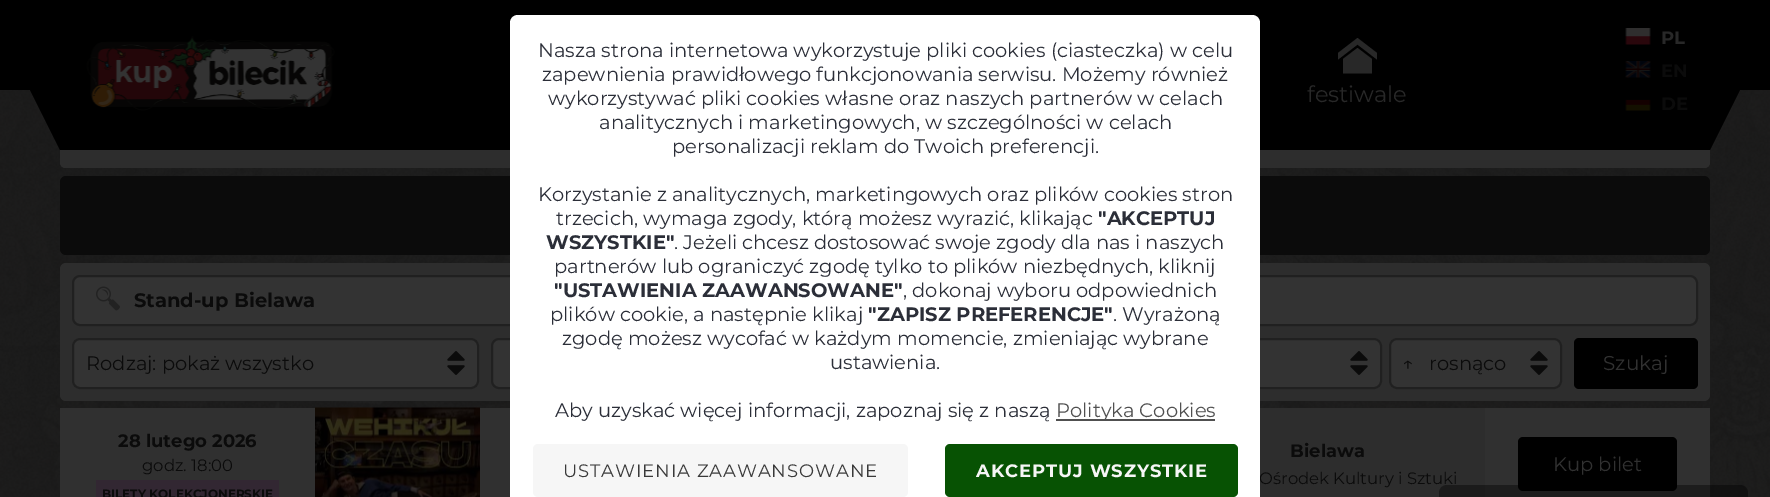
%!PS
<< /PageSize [1770 497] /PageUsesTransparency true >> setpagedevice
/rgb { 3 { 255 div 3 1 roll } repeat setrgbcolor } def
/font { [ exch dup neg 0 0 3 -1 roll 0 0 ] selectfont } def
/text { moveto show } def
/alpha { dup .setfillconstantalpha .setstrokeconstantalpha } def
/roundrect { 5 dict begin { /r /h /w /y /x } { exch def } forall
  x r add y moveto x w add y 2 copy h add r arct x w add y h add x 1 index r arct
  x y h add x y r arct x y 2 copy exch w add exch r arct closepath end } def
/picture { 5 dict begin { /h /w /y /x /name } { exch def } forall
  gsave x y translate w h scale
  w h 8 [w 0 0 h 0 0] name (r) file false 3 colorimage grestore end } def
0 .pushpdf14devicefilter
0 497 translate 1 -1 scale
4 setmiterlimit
255 255 255 rgb
0 0 1770 497 rectfill
(img_01.rgb) 0 434 1770 63 picture
(img_02.rgb) 0 90 1770 344 picture
(img_03.rgb) 0 90 1770 407 picture
0 0 0 rgb
0 0 60 90 rectfill
45 45 45 rgb
66 93 moveto 819 0 rlineto 0 75 rlineto -819 0 rlineto -3.5 0 -6 -2.5 -6 -6 rcurveto 0 -63 rlineto 0 -3.5 2.5 -6 6 -6 rcurveto closepath fill
66 93 moveto 275 0 rlineto 0 75 rlineto -275 0 rlineto -3.5 0 -6 -2.5 -6 -6 rcurveto 0 -63 rlineto 0 -3.5 2.5 -6 6 -6 rcurveto closepath fill
885 93 moveto 819 0 rlineto 3.5 0 6 2.5 6 6 rcurveto 0 63 rlineto 0 3.5 -2.5 6 -6 6 rcurveto -819 0 rlineto closepath fill
1446 93 moveto 258 0 rlineto 3.5 0 6 2.5 6 6 rcurveto 0 63 rlineto 0 3.5 -2.5 6 -6 6 rcurveto -258 0 rlineto closepath fill
0 0 0 rgb
60 0 1650 150 rectfill
(img_04.rgb) 86 36 249 75 picture
40 40 40 rgb
1377 59.5 moveto -19.5 -15 rlineto -19.5 15 rlineto 0 -6.5 rlineto 19.5 -15 rlineto 19.5 15 rlineto closepath 1372 59 moveto 0 14.5 rlineto -29 0 rlineto 0 -14.5 rlineto 14.5 -11 rlineto closepath fill
(img_05.rgb) 1625 28 26 17 picture
(img_06.rgb) 1625 61 26 17 picture
(img_07.rgb) 1625 99 26 12 picture
0 0 0 rgb
1710 0 60 90 rectfill
1710 90 moveto 30 0 rlineto -30 60 rlineto closepath fill
60 90 moveto 0 60 rlineto -30 -60 rlineto closepath fill
11 11 11 rgb
60 176 1650 79 6 roundrect fill
45 45 45 rgb
60 263 1650 138 6 roundrect fill
51 51 51 rgb
73 276 1624 49 7 roundrect gsave fill grestore
32 32 32 rgb
2 setlinewidth
stroke
(img_08.rgb) 96 286 24 25 picture
51 51 51 rgb
72 338 407 51 8 roundrect fill
(img_09.rgb) 447 351 18 24 picture
32 32 32 rgb
73 339 405 49 7 roundrect stroke
51 51 51 rgb
492 339 455 49 7 roundrect gsave fill grestore
32 32 32 rgb
stroke
51 51 51 rgb
960 338 422 51 8 roundrect fill
(img_09.rgb) 1350 351 18 24 picture
32 32 32 rgb
961 339 420 49 7 roundrect stroke
51 51 51 rgb
1389 338 173 51 8 roundrect fill
(img_09.rgb) 1530 351 18 24 picture
32 32 32 rgb
1390 339 171 49 7 roundrect stroke
0 0 0 rgb
1574 338 124 51 5 roundrect fill
45 45 45 rgb
1260 408 225 89 rectfill
48 48 48 rgb
60 408 255 89 rectfill
50 39 50 rgb
96 480 183 17 rectfill
(img_10.rgb) 315 407 165 90 picture
48 48 48 rgb
480 408 30 89 rectfill
1485 408 225 89 rectfill
0 0 0 rgb
1518 437 159 54 5 roundrect fill
/Montserrat-Regular 22.5 font
40 40 40 rgb
(festiwale) 1307 102 text
/Montserrat-Bold 18 font
(PL) 1661 44 text
11 11 11 rgb
(EN) 1661 77 text
(DE) 1661 110 text
/Montserrat-Bold 19.5 font
(Stand-up Bielawa) 134 307 text
/Montserrat-Regular 19.5 font
(Rodzaj: pokaż wszystko) 86 370 text
(↑   rosnąco) 1402 370 text
/Montserrat-Regular 20 font
49 49 49 rgb
(Szukaj) 1603 370 text
/Montserrat-Bold 18 font
11 11 11 rgb
(28 lutego 2026) 118 447 text
/Montserrat-Regular 16.5 font
(godz. 18:00) 142 471 text
/Montserrat-Bold 12 font
(BILETY KOLEKCJONERSKIE) 102 498 text
/Montserrat-Bold 18 font
(Bielawa) 1290 457 text
/Montserrat-Regular 16.5 font
(Ośrodek Kultury i Sztuki) 1259 484 text
/Montserrat-Regular 19.5 font
49 49 49 rgb
(Kup bilet) 1553 471 text
255 255 255 rgb
518 15 moveto 734 0 rlineto 4.5 0 8 3.5 8 8 rcurveto 0 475 rlineto -750 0 rlineto 0 -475 rlineto 0 -4.5 3.5 -8 8 -8 rcurveto closepath fill
43 46 56 rgb
(Nasza strona internetowa wykorzystuje pliki cookies \(ciasteczka\) w celu) 538 57 text
(zapewnienia prawidłowego funkcjonowania serwisu. Możemy również) 542 81 text
(wykorzystywać pliki cookies własne oraz naszych partnerów w celach) 548 105 text
(analitycznych i marketingowych, w szczególności w celach) 599 129 text
(personalizacji reklam do Twoich preferencji.) 672 153 text
(Korzystanie z analitycznych, marketingowych oraz plików cookies stron) 538 201 text
(trzecich, wymaga zgody, którą możesz wyrazić, klikając) 556 225 text
/Montserrat-Bold 19.5 font
("AKCEPTUJ) 1098 225 text
(WSZYSTKIE") 546 249 text
/Montserrat-Regular 19.5 font
(. Jeżeli chcesz dostosować swoje zgody dla nas i naszych) 674 249 text
(partnerów lub ograniczyć zgodę tylko to plików niezbędnych, kliknij) 554 273 text
/Montserrat-Bold 19.5 font
("USTAWIENIA ZAAWANSOWANE") 554 297 text
/Montserrat-Regular 19.5 font
(, dokonaj wyboru odpowiednich) 903 297 text
(plików cookie, a następnie klikaj) 550 321 text
/Montserrat-Bold 19.5 font
("ZAPISZ PREFERENCJE") 868 321 text
/Montserrat-Regular 19.5 font
(. Wyrażoną) 1113 321 text
(zgodę możesz wycofać w każdym momencie, zmieniając wybrane) 562 345 text
(ustawienia.) 830 369 text
(Aby uzyskać więcej informacji, zapoznaj się z naszą) 555 417 text
80 80 80 rgb
1056 419 159 2 rectfill
(Polityka Cookies) 1056 417 text
246 246 246 rgb
533 444 375 53 5 roundrect fill
/Montserrat-Regular 18 font
57 57 57 rgb
563 477 moveto 0.9 0 (USTAWIENIA ZAAWANSOWANE) ashow
7 82 3 rgb
945 444 293 53 5 roundrect fill
/Montserrat-Bold 18 font
246 246 246 rgb
976 477 moveto 0.9 0 (AKCEPTUJ WSZYSTKIE) ashow
0.4 alpha
0 0 0 rgb
1447 485 moveto 293 0 rlineto 4.5 0 8 3.5 8 8 rcurveto 0 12 rlineto -309 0 rlineto 0 -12 rlineto 0 -4.5 3.5 -8 8 -8 rcurveto closepath fill
.poppdf14devicefilter showpage
